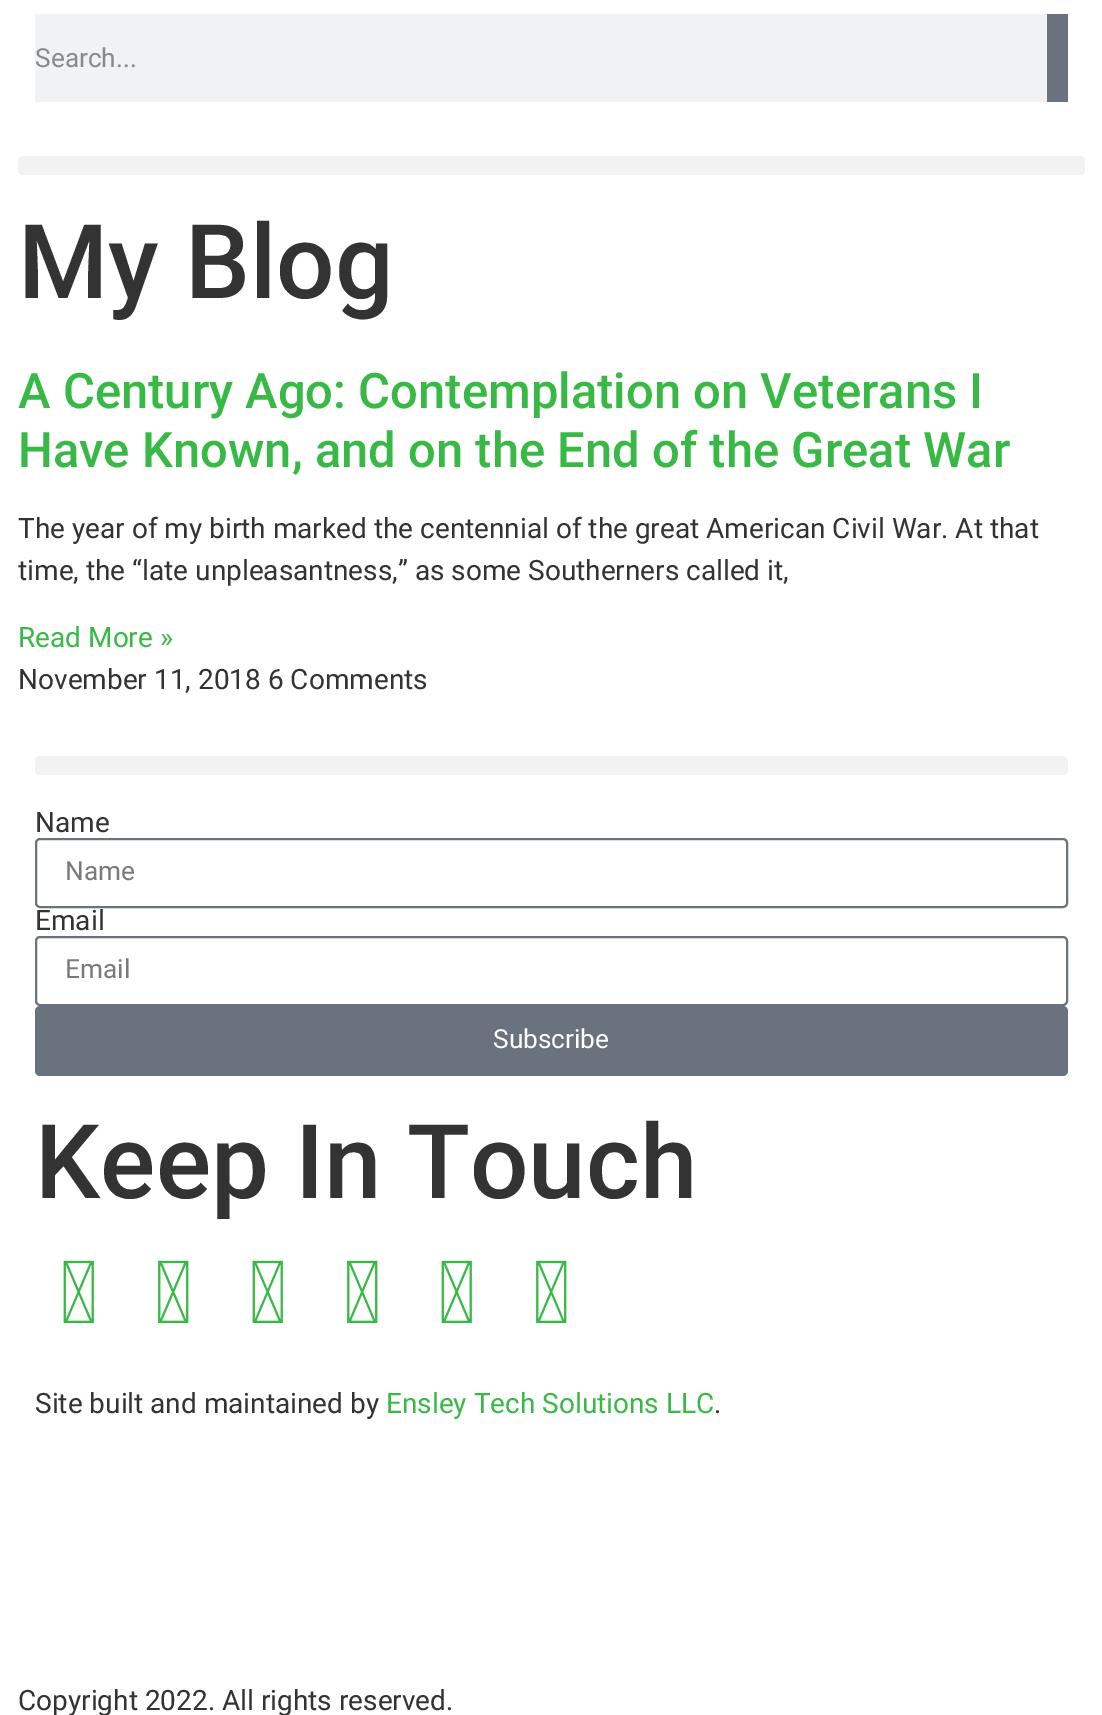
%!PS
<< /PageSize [1102 1715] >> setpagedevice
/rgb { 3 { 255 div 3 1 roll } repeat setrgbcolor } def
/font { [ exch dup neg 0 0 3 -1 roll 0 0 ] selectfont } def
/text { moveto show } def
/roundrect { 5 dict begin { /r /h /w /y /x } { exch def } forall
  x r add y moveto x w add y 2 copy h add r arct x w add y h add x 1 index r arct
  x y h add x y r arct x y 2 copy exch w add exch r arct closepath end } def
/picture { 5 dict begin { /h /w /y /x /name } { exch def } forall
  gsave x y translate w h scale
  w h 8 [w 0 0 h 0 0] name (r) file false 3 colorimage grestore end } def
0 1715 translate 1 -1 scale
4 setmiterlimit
255 255 255 rgb
0 0 1102 1715 rectfill
241 242 243 rgb
35 14 1012 88 rectfill
105 114 125 rgb
1047 14 21 88 rectfill
242 242 242 rgb
18 156 1067 19 5 roundrect fill
35 756 1033 19 5 roundrect fill
105 114 125 rgb
2 setlinewidth
36 839 1031 68 4 roundrect stroke
36 937 1031 68 4 roundrect stroke
35 1006 1033 70 5 roundrect fill
(img_01.rgb) 63 1260 31 63 picture
(img_02.rgb) 158 1260 31 63 picture
(img_01.rgb) 252 1260 31 63 picture
(img_02.rgb) 347 1260 31 63 picture
(img_01.rgb) 441 1260 31 63 picture
(img_02.rgb) 536 1260 31 63 picture
/Roboto-Regular 26.25 font
134 138 142 rgb
(Search...) 35 67 text
/Roboto-Medium 103.25 font
51 51 51 rgb
(My Blog) 18 298 text
/Roboto-Medium 49 font
56 185 70 rgb
(A Century Ago: Contemplation on Veterans I) 18 408 text
(Have Known, and on the End of the Great War) 18 467 text
/Roboto-Regular 28 font
51 51 51 rgb
(The year of my birth marked the centennial of the great American Civil War. At that) 18 538 text
(time, the “late unpleasantness,” as some Southerners called it,) 18 580 text
56 185 70 rgb
(Read More ») 18 647 text
51 51 51 rgb
(November 11, 2018 6 Comments) 18 689 text
(Name) 35 832 text
/Roboto-Regular 26.25 font
121 122 124 rgb
(Name) 65 880 text
/Roboto-Regular 28 font
51 51 51 rgb
(Email) 35 930 text
/Roboto-Regular 26.25 font
121 122 124 rgb
(Email) 65 978 text
255 255 255 rgb
(Subscribe) 493 1048 text
/Roboto-Medium 103.25 font
51 51 51 rgb
(Keep In Touch) 35 1198 text
/Roboto-Regular 28 font
(Site built and maintained by) 35 1413 text
56 185 70 rgb
(Ensley Tech Solutions LLC) 386 1413 text
51 51 51 rgb
(.) 714 1413 text
(Copyright 2022. All rights reserved.) 18 1710 text
showpage
